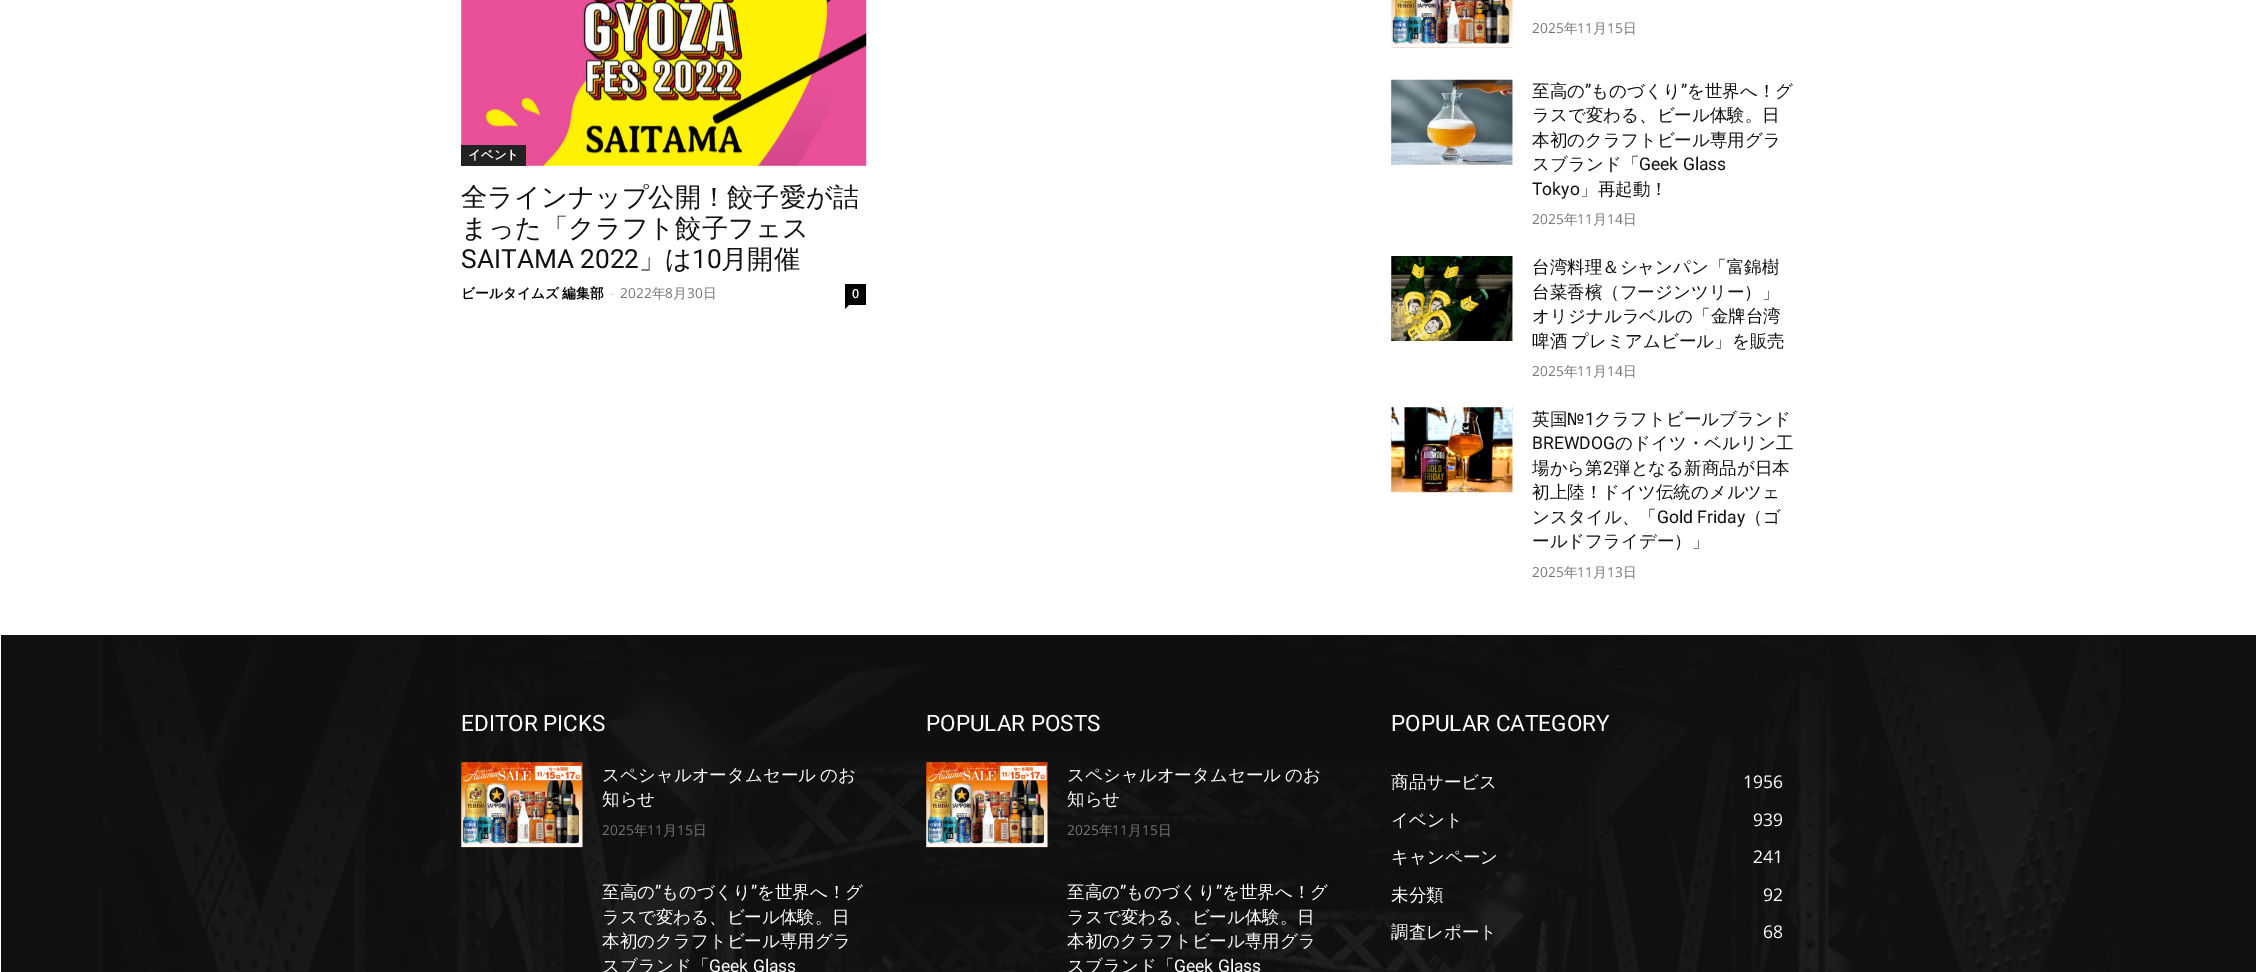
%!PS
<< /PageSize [2256 972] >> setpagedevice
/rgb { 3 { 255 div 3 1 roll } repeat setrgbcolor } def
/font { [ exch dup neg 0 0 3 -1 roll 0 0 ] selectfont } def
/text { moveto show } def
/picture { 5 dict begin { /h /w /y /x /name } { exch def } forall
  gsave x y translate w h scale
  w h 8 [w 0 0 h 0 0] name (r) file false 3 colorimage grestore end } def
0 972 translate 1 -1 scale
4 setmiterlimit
255 255 255 rgb
0 0 2256 972 rectfill
(img_01.rgb) 461 0 406 166 picture
34 34 34 rgb
461 145 65 21 rectfill
0 0 0 rgb
845 284 21 21 rectfill
845 305 moveto 4 0 rlineto -4 4 rlineto closepath fill
(img_02.rgb) 1391 0 122 48 picture
(img_03.rgb) 1391 79 122 86 picture
(img_04.rgb) 1391 256 122 85 picture
(img_05.rgb) 1391 407 122 86 picture
17 17 17 rgb
1 635 2255 337 rectfill
(img_06.rgb) 103 635 2018 337 picture
(img_07.rgb) 461 762 122 86 picture
(img_08.rgb) 926 762 122 86 picture
/WenQuanYiZenHei-Bold 12.5 font
255 255 255 rgb
(イベント) 468 159 text
/WenQuanYiZenHei-Medium 26.25 font
17 17 17 rgb
(全ラインナップ公開！餃子愛が詰) 461 206 text
(まった「クラフト餃子フェス) 461 237 text
/Roboto-Regular 26.25 font
(SAITAMA 2022) 461 268 text
/WenQuanYiZenHei-Medium 26.25 font
(」は) 639 268 text
/Roboto-Regular 26.25 font
(10) 692 268 text
/WenQuanYiZenHei-Medium 26.25 font
(月開催) 721 268 text
/WenQuanYiZenHei-Bold 13.75 font
0 0 0 rgb
461 298 moveto -1 0 32 (ビールタイムズ 編集部) widthshow
/OpenSans-Regular 13.75 font
204 204 204 rgb
(-) 610 298 text
118 118 118 rgb
(2022) 620 298 text
/WenQuanYiZenHei-Medium 13.75 font
(年) 652 298 text
/OpenSans-Regular 13.75 font
(8) 665 298 text
/WenQuanYiZenHei-Medium 13.75 font
(月) 673 298 text
/OpenSans-Regular 13.75 font
(30) 687 298 text
/WenQuanYiZenHei-Medium 13.75 font
(日) 703 298 text
/OpenSans-SemiBold 12.5 font
255 255 255 rgb
(0) 852 298 text
/OpenSans-Regular 13.75 font
118 118 118 rgb
(2025) 1532 33 text
/WenQuanYiZenHei-Medium 13.75 font
(年) 1564 33 text
/OpenSans-Regular 13.75 font
(11) 1577 33 text
/WenQuanYiZenHei-Medium 13.75 font
(月) 1593 33 text
/OpenSans-Regular 13.75 font
(15) 1607 33 text
/WenQuanYiZenHei-Medium 13.75 font
(日) 1623 33 text
/WenQuanYiZenHei-Medium 17.5 font
17 17 17 rgb
(至高の) 1532 97 text
/Roboto-Regular 17.5 font
(”) 1585 97 text
/WenQuanYiZenHei-Medium 17.5 font
(ものづくり) 1591 97 text
/Roboto-Regular 17.5 font
(”) 1681 97 text
/WenQuanYiZenHei-Medium 17.5 font
(を世界へ！グ) 1687 97 text
(ラスで変わる、ビール体験。日) 1532 121 text
(本初のクラフトビール専用グラ) 1532 146 text
(スブランド「) 1532 170 text
/Roboto-Regular 17.5 font
(Geek Glass) 1639 170 text
(Tokyo) 1532 195 text
/WenQuanYiZenHei-Medium 17.5 font
(」再起動！) 1580 195 text
/OpenSans-Regular 13.75 font
118 118 118 rgb
(2025) 1532 224 text
/WenQuanYiZenHei-Medium 13.75 font
(年) 1564 224 text
/OpenSans-Regular 13.75 font
(11) 1577 224 text
/WenQuanYiZenHei-Medium 13.75 font
(月) 1593 224 text
/OpenSans-Regular 13.75 font
(14) 1607 224 text
/WenQuanYiZenHei-Medium 13.75 font
(日) 1623 224 text
/WenQuanYiZenHei-Medium 17.5 font
17 17 17 rgb
(台湾料理＆シャンパン「富錦樹) 1532 273 text
(台菜香檳（フージンツリー）」) 1532 298 text
(オリジナルラベルの「金牌台湾) 1532 322 text
1532 347 moveto -1 0 32 (啤酒 プレミアムビール」を販売) widthshow
/OpenSans-Regular 13.75 font
118 118 118 rgb
(2025) 1532 376 text
/WenQuanYiZenHei-Medium 13.75 font
(年) 1564 376 text
/OpenSans-Regular 13.75 font
(11) 1577 376 text
/WenQuanYiZenHei-Medium 13.75 font
(月) 1593 376 text
/OpenSans-Regular 13.75 font
(14) 1607 376 text
/WenQuanYiZenHei-Medium 13.75 font
(日) 1623 376 text
/WenQuanYiZenHei-Medium 17.5 font
17 17 17 rgb
(英国№) 1532 425 text
/Roboto-Regular 17.5 font
(1) 1585 425 text
/WenQuanYiZenHei-Medium 17.5 font
(クラフトビールブランド) 1594 425 text
/Roboto-Regular 17.5 font
(BREWDOG) 1532 449 text
/WenQuanYiZenHei-Medium 17.5 font
(のドイツ・ベルリン工) 1615 449 text
(場から第) 1532 474 text
/Roboto-Regular 17.5 font
(2) 1603 474 text
/WenQuanYiZenHei-Medium 17.5 font
(弾となる新商品が日本) 1613 474 text
(初上陸！ドイツ伝統のメルツェ) 1532 498 text
(ンスタイル、「) 1532 523 text
/Roboto-Regular 17.5 font
(Gold Friday) 1657 523 text
/WenQuanYiZenHei-Medium 17.5 font
(（ゴ) 1745 523 text
(ールドフライデー）」) 1532 547 text
/OpenSans-Regular 13.75 font
118 118 118 rgb
(2025) 1532 577 text
/WenQuanYiZenHei-Medium 13.75 font
(年) 1564 577 text
/OpenSans-Regular 13.75 font
(11) 1577 577 text
/WenQuanYiZenHei-Medium 13.75 font
(月) 1593 577 text
/OpenSans-Regular 13.75 font
(13) 1607 577 text
/WenQuanYiZenHei-Medium 13.75 font
(日) 1623 577 text
/Roboto-Regular 22.5 font
255 255 255 rgb
(EDITOR PICKS) 461 731 text
/WenQuanYiZenHei-Medium 17.5 font
602 781 moveto -1 0 32 (スペシャルオータムセール のお) widthshow
(知らせ) 602 805 text
/OpenSans-Regular 13.75 font
118 118 118 rgb
(2025) 602 835 text
/WenQuanYiZenHei-Medium 13.75 font
(年) 634 835 text
/OpenSans-Regular 13.75 font
(11) 647 835 text
/WenQuanYiZenHei-Medium 13.75 font
(月) 663 835 text
/OpenSans-Regular 13.75 font
(15) 677 835 text
/WenQuanYiZenHei-Medium 13.75 font
(日) 693 835 text
/WenQuanYiZenHei-Medium 17.5 font
255 255 255 rgb
(至高の) 602 898 text
/Roboto-Regular 17.5 font
(”) 655 898 text
/WenQuanYiZenHei-Medium 17.5 font
(ものづくり) 661 898 text
/Roboto-Regular 17.5 font
(”) 751 898 text
/WenQuanYiZenHei-Medium 17.5 font
(を世界へ！グ) 757 898 text
(ラスで変わる、ビール体験。日) 602 923 text
(本初のクラフトビール専用グラ) 602 947 text
(スブランド「) 602 972 text
/Roboto-Regular 17.5 font
(Geek Glass) 709 972 text
/Roboto-Regular 22.5 font
(POPULAR POSTS) 926 731 text
/WenQuanYiZenHei-Medium 17.5 font
1067 781 moveto -1 0 32 (スペシャルオータムセール のお) widthshow
(知らせ) 1067 805 text
/OpenSans-Regular 13.75 font
118 118 118 rgb
(2025) 1067 835 text
/WenQuanYiZenHei-Medium 13.75 font
(年) 1099 835 text
/OpenSans-Regular 13.75 font
(11) 1112 835 text
/WenQuanYiZenHei-Medium 13.75 font
(月) 1128 835 text
/OpenSans-Regular 13.75 font
(15) 1142 835 text
/WenQuanYiZenHei-Medium 13.75 font
(日) 1158 835 text
/WenQuanYiZenHei-Medium 17.5 font
255 255 255 rgb
(至高の) 1067 898 text
/Roboto-Regular 17.5 font
(”) 1120 898 text
/WenQuanYiZenHei-Medium 17.5 font
(ものづくり) 1126 898 text
/Roboto-Regular 17.5 font
(”) 1216 898 text
/WenQuanYiZenHei-Medium 17.5 font
(を世界へ！グ) 1222 898 text
(ラスで変わる、ビール体験。日) 1067 923 text
(本初のクラフトビール専用グラ) 1067 947 text
(スブランド「) 1067 972 text
/Roboto-Regular 17.5 font
(Geek Glass) 1174 972 text
/Roboto-Regular 22.5 font
(POPULAR CATEGORY) 1391 731 text
/WenQuanYiZenHei-Medium 17.5 font
(商品サービス) 1391 788 text
/OpenSans-Regular 17.5 font
(1956) 1743 788 text
/WenQuanYiZenHei-Medium 17.5 font
(イベント) 1391 826 text
/OpenSans-Regular 17.5 font
(939) 1753 826 text
/WenQuanYiZenHei-Medium 17.5 font
(キャンペーン) 1391 863 text
/OpenSans-Regular 17.5 font
(241) 1753 863 text
/WenQuanYiZenHei-Medium 17.5 font
(未分類) 1391 901 text
/OpenSans-Regular 17.5 font
(92) 1763 901 text
/WenQuanYiZenHei-Medium 17.5 font
(調査レポート) 1391 938 text
/OpenSans-Regular 17.5 font
(68) 1763 938 text
showpage
